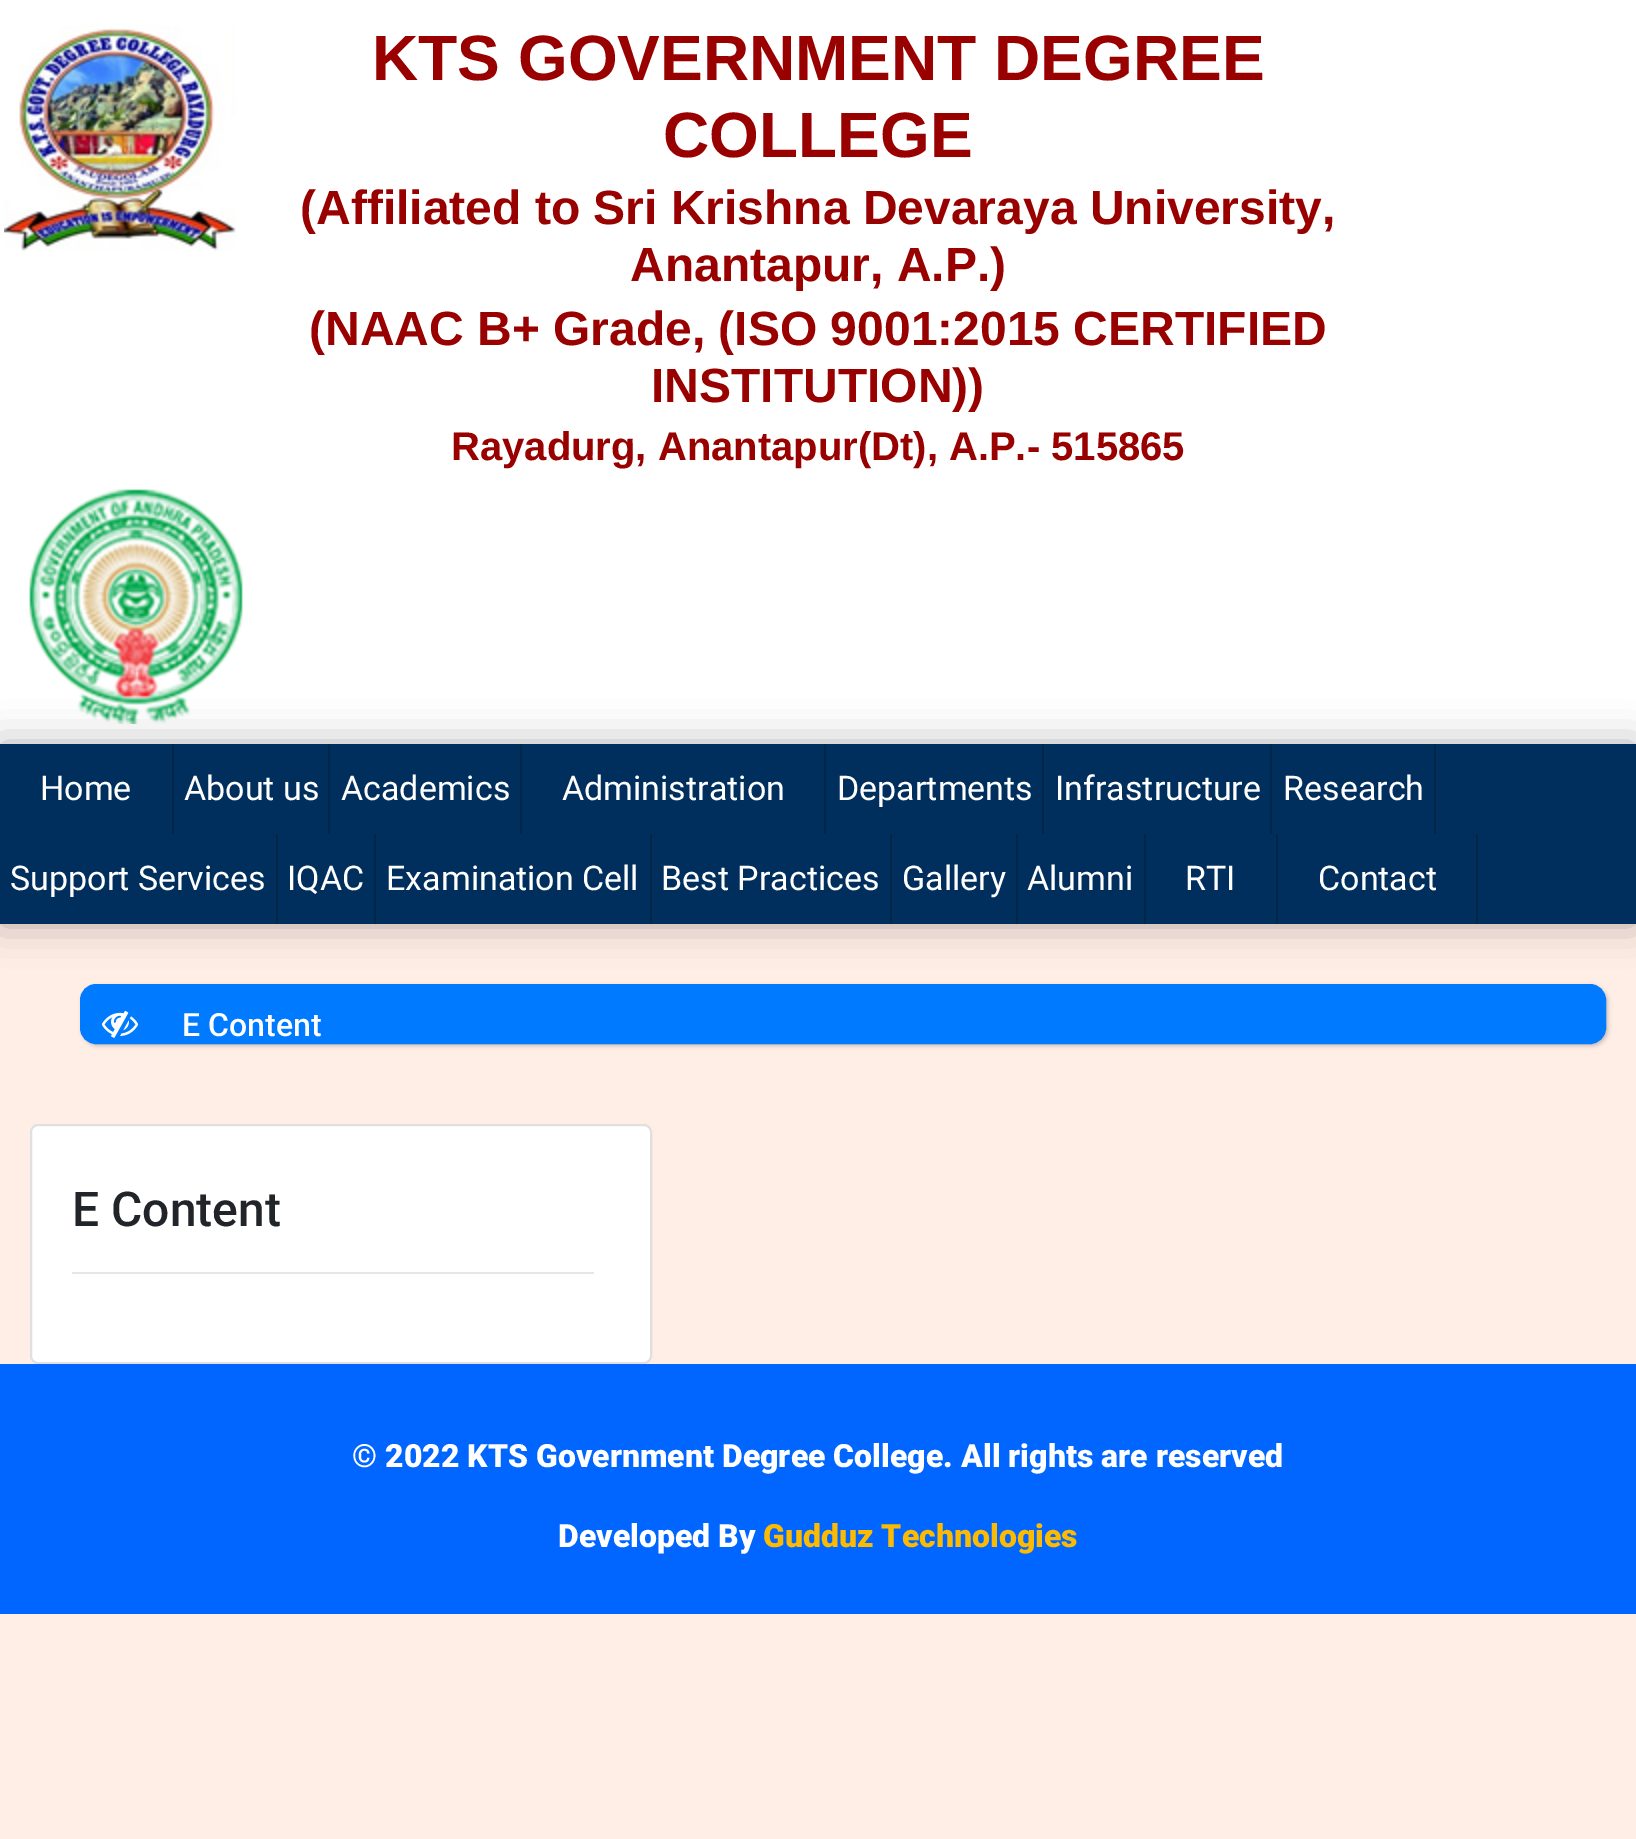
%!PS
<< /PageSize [1636 1839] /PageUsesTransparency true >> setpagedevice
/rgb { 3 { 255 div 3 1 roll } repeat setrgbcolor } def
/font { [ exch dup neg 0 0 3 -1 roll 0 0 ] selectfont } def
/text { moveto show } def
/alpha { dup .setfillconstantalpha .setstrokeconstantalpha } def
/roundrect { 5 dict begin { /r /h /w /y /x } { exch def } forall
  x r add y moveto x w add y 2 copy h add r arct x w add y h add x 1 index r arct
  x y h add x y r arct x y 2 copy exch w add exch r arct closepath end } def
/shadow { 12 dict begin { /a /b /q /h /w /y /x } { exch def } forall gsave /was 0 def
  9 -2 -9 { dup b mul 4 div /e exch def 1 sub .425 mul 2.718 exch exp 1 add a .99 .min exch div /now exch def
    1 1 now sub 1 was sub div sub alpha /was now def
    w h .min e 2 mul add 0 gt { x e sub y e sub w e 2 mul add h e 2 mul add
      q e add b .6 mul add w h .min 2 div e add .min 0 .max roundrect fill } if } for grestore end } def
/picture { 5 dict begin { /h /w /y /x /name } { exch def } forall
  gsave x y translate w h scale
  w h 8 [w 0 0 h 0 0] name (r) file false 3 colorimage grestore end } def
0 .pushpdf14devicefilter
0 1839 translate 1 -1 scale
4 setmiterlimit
255 238 230 rgb
0 0 1636 1839 rectfill
255 255 255 rgb
0 0 1636 744 rectfill
(img_01.rgb) 4 25 232 226 picture
(img_02.rgb) 29 489 214 235 picture
0 0 0 rgb
82 986 1526 60 16 2 0.2 shadow
0 123 255 rgb
81 985 1524 58 15 roundrect gsave fill grestore
2 setlinewidth
stroke
0 0 0 rgb
0 744 1636 180 0 20 0.3 shadow
1 47 93 rgb
0 744 1636 180 rectfill
1 38 74 rgb
172 744 2 90 rectfill
328 744 2 90 rectfill
520 744 2 90 rectfill
824 744 2 90 rectfill
1042 744 2 90 rectfill
1270 744 2 90 rectfill
1434 744 2 90 rectfill
276 834 2 90 rectfill
374 834 2 90 rectfill
650 834 2 90 rectfill
890 834 2 90 rectfill
1016 834 2 90 rectfill
1144 834 2 90 rectfill
1276 834 2 90 rectfill
1476 834 2 90 rectfill
(img_03.rgb) 102 1011 36 27 picture
255 255 255 rgb
30 1124 622 240 8 roundrect fill
0.12 alpha
0 0 0 rgb
31 1125 620 238 7 roundrect stroke
1 alpha
230 230 230 rgb
72 1272 522 2 rectfill
0 102 255 rgb
0 1364 1636 250 rectfill
/LiberationSans-Bold 64 font
153 0 0 rgb
(KTS GOVERNMENT DEGREE) 372 80 text
(COLLEGE) 663 157 text
/LiberationSans-Bold 48 font
(\(Affiliated to Sri Krishna Devaraya University,) 300 224 text
(Anantapur, A.P.\)) 630 281 text
(\(NAAC B+ Grade, \(ISO 9001:2015 CERTIFIED) 309 345 text
(INSTITUTION\)\)) 651 402 text
/LiberationSans-Bold 40 font
(Rayadurg, Anantapur\(Dt\), A.P.- 515865) 451 460 text
/Roboto-Regular 34 font
255 255 255 rgb
(Home) 40 800 text
(About us) 184 800 text
(Academics) 341 800 text
(Administration) 562 800 text
(Departments) 837 800 text
(Infrastructure) 1055 800 text
(Research) 1283 800 text
(Support Services) 10 890 text
(IQAC) 287 890 text
(Examination Cell) 386 890 text
(Best Practices) 661 890 text
(Gallery) 902 890 text
(Alumni) 1027 890 text
(RTI) 1185 890 text
(Contact) 1318 890 text
/Roboto-Medium 32 font
(E Content) 182 1036 text
/Roboto-Medium 48 font
33 37 41 rgb
(E Content) 72 1226 text
/Roboto-Black 32 font
255 255 255 rgb
(© 2022 KTS Government Degree College. All rights are reserved) 352 1467 text
(Developed By) 558 1547 text
252 186 3 rgb
(Gudduz Technologies) 763 1547 text
.poppdf14devicefilter showpage
